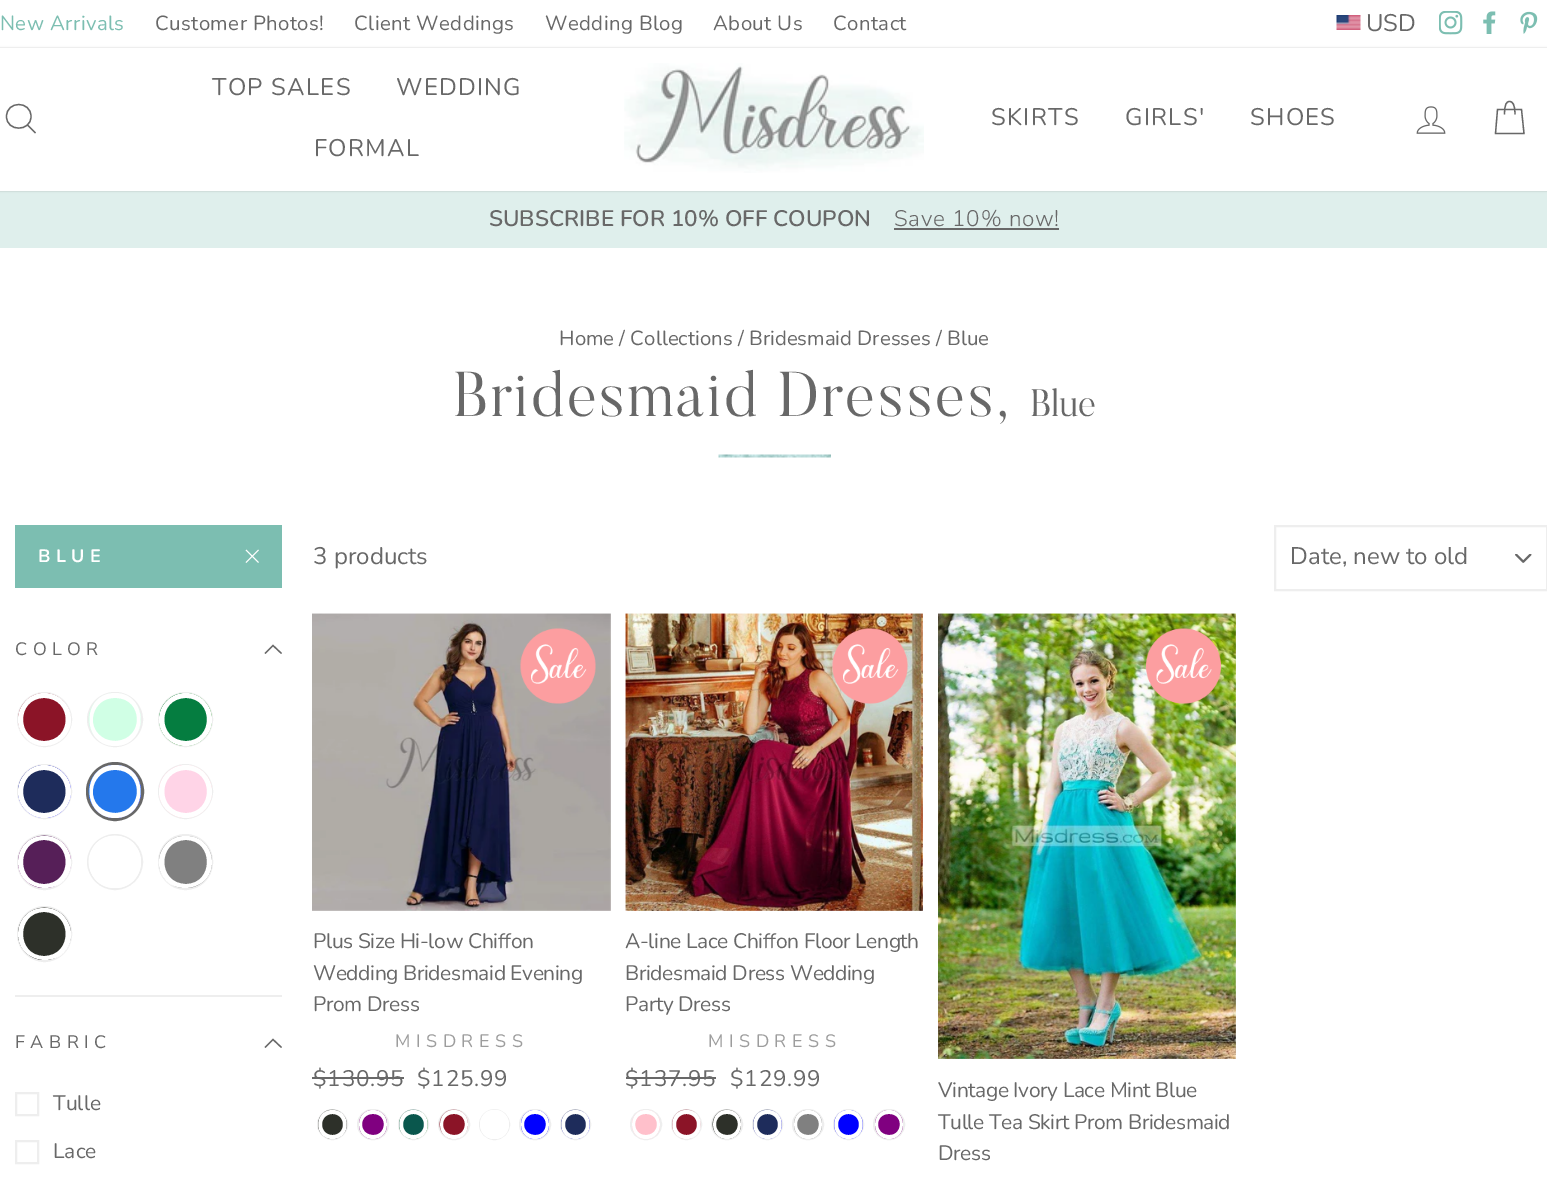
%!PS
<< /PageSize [1547 1185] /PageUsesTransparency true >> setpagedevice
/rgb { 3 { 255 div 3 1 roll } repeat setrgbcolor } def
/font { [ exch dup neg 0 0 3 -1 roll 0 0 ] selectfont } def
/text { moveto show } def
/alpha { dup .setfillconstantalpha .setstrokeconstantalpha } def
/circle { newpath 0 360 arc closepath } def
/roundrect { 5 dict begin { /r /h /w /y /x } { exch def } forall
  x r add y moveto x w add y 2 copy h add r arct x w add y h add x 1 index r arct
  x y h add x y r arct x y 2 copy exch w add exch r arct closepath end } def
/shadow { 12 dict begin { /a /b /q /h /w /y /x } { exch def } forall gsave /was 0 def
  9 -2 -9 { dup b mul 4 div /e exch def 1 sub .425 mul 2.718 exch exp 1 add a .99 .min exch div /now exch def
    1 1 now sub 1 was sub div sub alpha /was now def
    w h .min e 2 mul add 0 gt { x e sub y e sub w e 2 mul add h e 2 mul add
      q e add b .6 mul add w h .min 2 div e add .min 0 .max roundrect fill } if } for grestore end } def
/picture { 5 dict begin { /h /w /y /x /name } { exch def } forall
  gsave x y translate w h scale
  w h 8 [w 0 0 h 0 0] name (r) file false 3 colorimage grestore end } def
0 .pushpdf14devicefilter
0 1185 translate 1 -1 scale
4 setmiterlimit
255 255 255 rgb
0 0 1547 1185 rectfill
(img_01.rgb) 1336 15 25 15 picture
(img_02.rgb) 1439 11 24 24 picture
(img_03.rgb) 1483 11 13 23 picture
(img_04.rgb) 1520 11 18 23 picture
223 239 236 rgb
0 191 1547 57 rectfill
0 0 0 rgb
0 48 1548 143 0 1 0.2 shadow
255 255 255 rgb
0 48 1547 143 rectfill
104 104 104 rgb
1.3 setlinewidth
31 116.5 moveto 0 15.5 -24.5 15.5 -24.5 0 rcurveto 0 -16 24.5 -16 24.5 0 rcurveto closepath 35.5 133 moveto -8 -8 rlineto stroke
(img_05.rgb) 624 63 300 110 picture
(img_06.rgb) 1416 106 30 28 picture
1504.5 114.5 moveto 0 -10.5 2 -13 5 -13 rcurveto 3 0 5.5 2.5 5.5 13 rcurveto 1497.5 109.5 moveto 24 0 rlineto 2.5 24 rlineto -28.5 0 rlineto closepath stroke
894 228 165 2 rectfill
(img_07.rgb) 718 454 113 4 picture
124 190 177 rgb
15 525 267 63 rectfill
255 255 255 rgb
0.9 setlinewidth
246 550 moveto 12.5 12.5 rlineto 258.5 550 moveto -12.5 12.5 rlineto stroke
104 104 104 rgb
1.3 setlinewidth
265 653.5 moveto 8 -8 rlineto 8.5 8 rlineto stroke
238 238 238 rgb
2 setlinewidth
44.5 719.5 26.5 circle stroke
(img_08.rgb) 18 693 53 53 picture
255 255 255 rgb
44 693 moveto -14 0 -26 12 -26 27 rcurveto 0 14 12 26 26 26 rcurveto 15 0 27 -12 27 -26 rcurveto 0 -15 -12 -27 -27 -27 rcurveto closepath 44 698 moveto -28 0 -28 43 0 43 rcurveto 29 0 29 -43 0 -43 rcurveto closepath eofill
238 238 238 rgb
88 693 54 53 26.5 roundrect stroke
(img_09.rgb) 88 693 53 53 picture
255 255 255 rgb
115 693 moveto -34 0 -34 53 0 53 rcurveto 34 0 34 -53 0 -53 rcurveto closepath 114 698 moveto -21 0 -29 28 -12 39 rcurveto 4 3 9 4 14 4 rcurveto 29 -2 27 -43 0 -43 rcurveto closepath eofill
238 238 238 rgb
185.5 719.5 26.5 circle stroke
(img_10.rgb) 158 693 54 53 picture
255 255 255 rgb
186 693 moveto -15 0 -27 12 -27 27 rcurveto 0 14 12 26 27 26 rcurveto 14 0 26 -12 26 -26 rcurveto 0 -15 -12 -27 -26 -27 rcurveto closepath 186 698 moveto -29 0 -29 43 0 43 rcurveto 28 0 28 -43 0 -43 rcurveto closepath eofill
238 238 238 rgb
44.5 791.5 26.5 circle stroke
0 0 255 rgb
44.5 791.5 26.5 circle fill
(img_11.rgb) 18 765 53 53 picture
255 255 255 rgb
44 765 moveto -14 0 -26 12 -26 27 rcurveto 0 14 12 26 26 26 rcurveto 15 0 27 -12 27 -26 rcurveto 0 -15 -12 -27 -27 -27 rcurveto closepath 44 770 moveto -28 0 -28 43 0 43 rcurveto 29 0 29 -43 0 -43 rcurveto closepath eofill
104 104 104 rgb
3 setlinewidth
87.5 763.5 55 56 27.5 roundrect stroke
0 0 255 rgb
89 765 52 53 26 roundrect fill
(img_12.rgb) 88 765 53 53 picture
255 255 255 rgb
115 765 moveto -34 0 -34 53 0 53 rcurveto 34 0 34 -53 0 -53 rcurveto closepath 114 770 moveto -21 0 -29 28 -12 39 rcurveto 4 3 9 4 14 4 rcurveto 29 -2 27 -43 0 -43 rcurveto closepath eofill
238 238 238 rgb
2 setlinewidth
185.5 791.5 26.5 circle stroke
(img_13.rgb) 159 765 53 53 picture
255 255 255 rgb
186 765 moveto -15 0 -27 12 -27 27 rcurveto 0 14 12 26 27 26 rcurveto 14 0 26 -12 26 -26 rcurveto 0 -15 -12 -27 -26 -27 rcurveto closepath 186 770 moveto -29 0 -29 43 0 43 rcurveto 28 0 28 -43 0 -43 rcurveto closepath eofill
238 238 238 rgb
18 835 53 54 26.5 roundrect stroke
128 0 128 rgb
18 836 53 52 26 roundrect fill
(img_14.rgb) 18 835 53 53 picture
255 255 255 rgb
44 836 moveto -32 0 -37 49 0 52 rcurveto 5 0 11 -1 16 -4 rcurveto 21 -15 10 -48 -15 -48 rcurveto closepath 44 840 moveto -28 0 -28 44 0 44 rcurveto 29 0 29 -44 0 -44 rcurveto closepath eofill
238 238 238 rgb
115 862 27 circle stroke
255 255 255 rgb
115 862 26 circle fill
(img_15.rgb) 88 835 46 50 picture
115 836 moveto -34 0 -34 52 0 52 rcurveto 34 0 34 -52 0 -52 rcurveto closepath 115 840 moveto -29 0 -29 44 0 44 rcurveto 29 0 29 -44 0 -44 rcurveto closepath eofill
238 238 238 rgb
159 835 53 54 26.5 roundrect stroke
128 128 128 rgb
159 836 53 52 26 roundrect fill
255 255 255 rgb
185 836 moveto -25 0 -36 33 -15 48 rcurveto 5 3 11 4 16 4 rcurveto 37 -3 32 -52 0 -52 rcurveto closepath 186 840 moveto -29 0 -29 44 0 44 rcurveto 28 0 28 -44 0 -44 rcurveto closepath eofill
238 238 238 rgb
18 907 53 54 26.5 roundrect stroke
0 0 0 rgb
18 908 53 52 26 roundrect fill
(img_16.rgb) 18 907 53 53 picture
255 255 255 rgb
44 908 moveto -32 0 -37 49 0 52 rcurveto 5 0 11 -1 16 -4 rcurveto 21 -15 10 -48 -15 -48 rcurveto closepath 44 912 moveto -28 0 -28 44 0 44 rcurveto 29 0 29 -44 0 -44 rcurveto closepath eofill
238 238 238 rgb
15 995 267 2 rectfill
104 104 104 rgb
1.3 setlinewidth
265 1047.5 moveto 8 -8 rlineto 8.5 8 rlineto stroke
238 238 238 rgb
2 setlinewidth
16 1093 22 22 rectstroke
16 1141 22 22 rectstroke
(img_17.rgb) 1515 554 17 9 picture
1275 526 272 64 rectstroke
(img_19.rgb) 312 613 299 298 picture
(img_18.rgb) 520 628 76 76 picture
104 104 104 rgb
312 1077 92 2 rectfill
238 238 238 rgb
332.5 1124.5 14.5 circle stroke
0 0 0 rgb
332.5 1124.5 14.5 circle fill
(img_20.rgb) 318 1109 29 30 picture
255 255 255 rgb
332.5 1110 moveto -19 0 -19 29 0 29 rcurveto 19 0 19 -29 0 -29 rcurveto closepath 332.5 1114 moveto -14 0 -14 21 0 21 rcurveto 14 0 14 -21 0 -21 rcurveto closepath eofill
238 238 238 rgb
358 1110 30 29 14.5 roundrect stroke
128 0 128 rgb
359 1110 28 29 14 roundrect fill
255 255 255 rgb
373 1110 moveto -18.5 0 -18.5 29 0 29 rcurveto 18.5 0 18.5 -29 0 -29 rcurveto closepath 372.5 1114 moveto -13.5 0 -14.5 20 0 21 rcurveto 14.5 1 15.5 -21 1 -21 rcurveto closepath eofill
238 238 238 rgb
413.5 1124.5 14.5 circle stroke
0 128 0 rgb
413.5 1124.5 14.5 circle fill
(img_21.rgb) 399 1109 29 30 picture
255 255 255 rgb
413.5 1110 moveto -19 0 -19 29 0 29 rcurveto 19 0 19 -29 0 -29 rcurveto closepath 413.5 1114 moveto -14 0 -14 21 0 21 rcurveto 14 0 14 -21 0 -21 rcurveto closepath eofill
238 238 238 rgb
439 1110 30 29 14.5 roundrect stroke
(img_22.rgb) 439 1109 29 30 picture
255 255 255 rgb
454 1110 moveto -18.5 0 -18.5 29 0 29 rcurveto 18.5 0 18.5 -29 0 -29 rcurveto closepath 453.5 1114 moveto -13.5 0 -14.5 20 0 21 rcurveto 14.5 1 15.5 -21 1 -21 rcurveto closepath eofill
238 238 238 rgb
494.5 1124.5 14.5 circle stroke
255 255 255 rgb
494.5 1124.5 14.5 circle fill
(img_23.rgb) 480 1109 22 12 picture
494.5 1110 moveto -19 0 -19 29 0 29 rcurveto 19 0 19 -29 0 -29 rcurveto closepath 494.5 1114 moveto -14 0 -14 21 0 21 rcurveto 14 0 14 -21 0 -21 rcurveto closepath eofill
238 238 238 rgb
520 1110 30 29 14.5 roundrect stroke
0 0 255 rgb
521 1110 28 29 14 roundrect fill
255 255 255 rgb
535 1110 moveto -18.5 0 -18.5 29 0 29 rcurveto 18.5 0 18.5 -29 0 -29 rcurveto closepath 534.5 1114 moveto -13.5 0 -14.5 20 0 21 rcurveto 14.5 1 15.5 -21 1 -21 rcurveto closepath eofill
238 238 238 rgb
575.5 1124.5 14.5 circle stroke
0 0 255 rgb
575.5 1124.5 14.5 circle fill
(img_24.rgb) 561 1109 29 30 picture
255 255 255 rgb
575.5 1110 moveto -19 0 -19 29 0 29 rcurveto 19 0 19 -29 0 -29 rcurveto closepath 575.5 1114 moveto -14 0 -14 21 0 21 rcurveto 14 0 14 -21 0 -21 rcurveto closepath eofill
(img_26.rgb) 625 613 298 298 picture
(img_25.rgb) 832 628 76 76 picture
104 104 104 rgb
626 1077 90 2 rectfill
238 238 238 rgb
631 1110 30 29 14.5 roundrect stroke
255 192 203 rgb
632 1110 28 29 14 roundrect fill
255 255 255 rgb
646 1110 moveto -18.5 0 -18.5 29 0 29 rcurveto 18.5 0 18.5 -29 0 -29 rcurveto closepath 645.5 1114 moveto -14.5 0 -13.5 22 1 21 rcurveto 14.5 -1 13.5 -21 0 -21 rcurveto closepath eofill
238 238 238 rgb
686.5 1124.5 14.5 circle stroke
(img_27.rgb) 672 1109 29 30 picture
255 255 255 rgb
686.5 1110 moveto -19 0 -19 29 0 29 rcurveto 19 0 19 -29 0 -29 rcurveto closepath 686.5 1114 moveto -14 0 -14 21 0 21 rcurveto 14 0 14 -21 0 -21 rcurveto closepath eofill
238 238 238 rgb
712 1110 30 29 14.5 roundrect stroke
(img_28.rgb) 712 1109 29 30 picture
255 255 255 rgb
727 1110 moveto -18.5 0 -18.5 29 0 29 rcurveto 18.5 0 18.5 -29 0 -29 rcurveto closepath 726.5 1114 moveto -13.5 0 -14.5 20 0 21 rcurveto 14.5 1 15.5 -21 1 -21 rcurveto closepath eofill
238 238 238 rgb
767.5 1124.5 14.5 circle stroke
0 0 255 rgb
767.5 1124.5 14.5 circle fill
(img_29.rgb) 753 1109 29 30 picture
255 255 255 rgb
767.5 1110 moveto -19 0 -19 29 0 29 rcurveto 19 0 19 -29 0 -29 rcurveto closepath 767.5 1114 moveto -14 0 -14 21 0 21 rcurveto 14 0 14 -21 0 -21 rcurveto closepath eofill
238 238 238 rgb
793 1110 30 29 14.5 roundrect stroke
128 128 128 rgb
794 1110 28 29 14 roundrect fill
255 255 255 rgb
808 1110 moveto -18.5 0 -18.5 29 0 29 rcurveto 18.5 0 18.5 -29 0 -29 rcurveto closepath 807.5 1114 moveto -13.5 0 -14.5 20 0 21 rcurveto 14.5 1 15.5 -21 1 -21 rcurveto closepath eofill
238 238 238 rgb
848.5 1124.5 14.5 circle stroke
0 0 255 rgb
848.5 1124.5 14.5 circle fill
255 255 255 rgb
848.5 1110 moveto -19 0 -19 29 0 29 rcurveto 19 0 19 -29 0 -29 rcurveto closepath 848.5 1114 moveto -14 0 -14 21 0 21 rcurveto 14 0 14 -21 0 -21 rcurveto closepath eofill
238 238 238 rgb
874 1110 30 29 14.5 roundrect stroke
128 0 128 rgb
875 1110 28 29 14 roundrect fill
255 255 255 rgb
889 1110 moveto -18.5 0 -18.5 29 0 29 rcurveto 18.5 0 18.5 -29 0 -29 rcurveto closepath 888.5 1114 moveto -13.5 0 -14.5 20 0 21 rcurveto 14.5 1 15.5 -21 1 -21 rcurveto closepath eofill
(img_31.rgb) 938 613 298 446 picture
(img_30.rgb) 1146 628 75 76 picture
/Nunito-Regular 20.4 font
124 190 177 rgb
0 30 moveto 0.4 0 (New Arrivals) ashow
104 104 104 rgb
155 30 moveto 0.4 0 (Customer Photos!) ashow
354 30 moveto 0.4 0 (Client Weddings) ashow
545 30 moveto 0.4 0 (Wedding Blog) ashow
713 30 moveto 0.4 0 (About Us) ashow
833 30 moveto 0.4 0 (Contact) ashow
/Nunito-Regular 24 font
(USD) 1366 31 text
212 95 moveto 1.25 0 (TOP SALES) ashow
396 95 moveto 1.25 0 (WEDDING) ashow
314 156 moveto 1.25 0 (FORMAL) ashow
991 125 moveto 1.25 0 (SKIRTS) ashow
1125 125 moveto 1.25 0 (GIRLS') ashow
1250 125 moveto 1.25 0 (SHOES) ashow
/Nunito-SemiBold 22.5 font
(SUBSCRIBE FOR 10% OFF COUPON) 489 226 text
/Nunito-Light 22.5 font
894 226 moveto 0.75 0 (Save 10% now!) ashow
/Nunito-Regular 20.4 font
(Home / Collections / Bridesmaid Dresses / Blue) 559 345 text
/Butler-Light 63 font
453 416 moveto 2.5 0 (Bridesmaid Dresses,) ashow
/Butler-Light 38 font
(Blue) 1030 416 text
/Nunito-Bold 18 font
255 255 255 rgb
38 562 moveto 5.5 0 (BLUE) ashow
/NunitoSans-Regular 18 font
104 104 104 rgb
15 655 moveto 5.5 0 (COLOR) ashow
15 1048 moveto 5.5 0 (FABRIC) ashow
/Nunito-Regular 21 font
(Tulle) 53 1110 text
(Lace) 53 1158 text
/Nunito-Regular 24 font
(3 products) 313 564 text
/NunitoSans-Regular 24 font
(Date, new to old) 1290 564 text
/Nunito-Regular 21 font
313 948 moveto -0.4 0 (Plus Size Hi-low Chiffon) ashow
313 980 moveto -0.4 0 (Wedding Bridesmaid Evening) ashow
313 1011 moveto -0.4 0 (Prom Dress) ashow
/Nunito-Regular 18 font
157 157 157 rgb
395 1047 moveto 5.5 0 (MISDRESS) ashow
/Nunito-Regular 22.5 font
104 104 104 rgb
313 1086 moveto 0.75 0 ($130.95) ashow
417 1086 moveto 0.75 0 ($125.99) ashow
/Nunito-Regular 21 font
625 948 moveto -0.4 0 (A-line Lace Chiffon Floor Length) ashow
625 980 moveto -0.4 0 (Bridesmaid Dress Wedding) ashow
625 1011 moveto -0.4 0 (Party Dress) ashow
/Nunito-Regular 18 font
157 157 157 rgb
708 1047 moveto 5.5 0 (MISDRESS) ashow
/Nunito-Regular 22.5 font
104 104 104 rgb
625 1086 moveto 0.75 0 ($137.95) ashow
730 1086 moveto 0.75 0 ($129.99) ashow
/Nunito-Regular 21 font
938 1097 moveto -0.4 0 (Vintage Ivory Lace Mint Blue) ashow
938 1129 moveto -0.4 0 (Tulle Tea Skirt Prom Bridesmaid) ashow
938 1160 moveto -0.4 0 (Dress) ashow
.poppdf14devicefilter showpage
